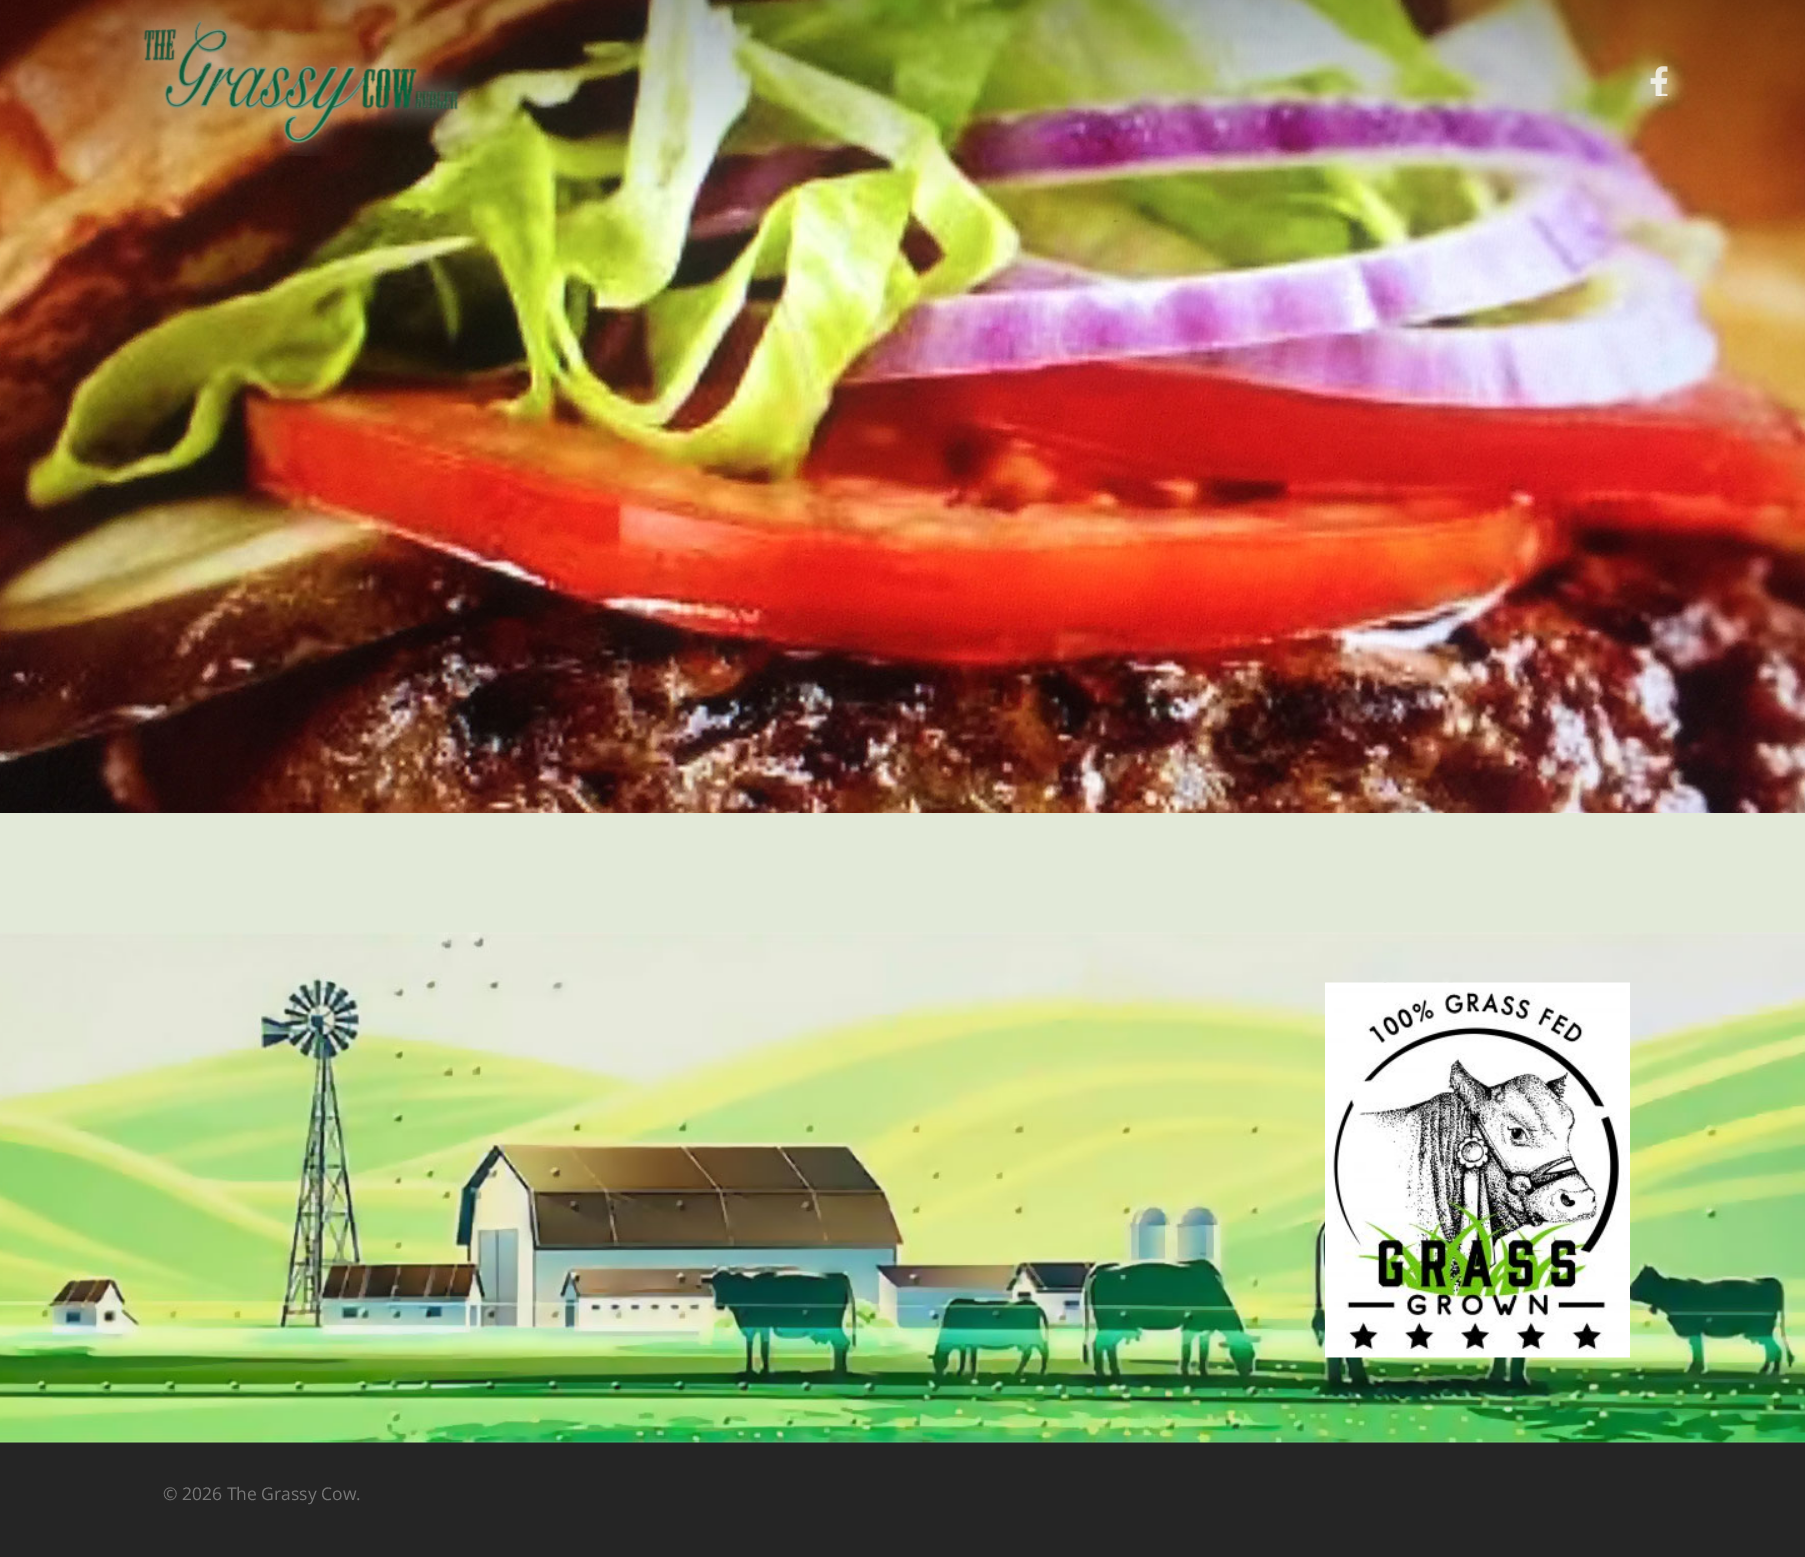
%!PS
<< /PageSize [1805 1557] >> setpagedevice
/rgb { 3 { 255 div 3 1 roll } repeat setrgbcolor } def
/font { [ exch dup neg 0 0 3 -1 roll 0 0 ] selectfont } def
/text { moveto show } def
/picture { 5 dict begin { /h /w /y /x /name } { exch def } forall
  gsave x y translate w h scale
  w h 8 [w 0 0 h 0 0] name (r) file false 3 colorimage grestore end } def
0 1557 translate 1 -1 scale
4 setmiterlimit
226 233 216 rgb
0 0 1805 1557 rectfill
(img_04.rgb) 0 0 1805 813 picture
(img_01.rgb) 126 7 349 149 picture
(img_02.rgb) 1650 66 18 30 picture
(img_03.rgb) 1657 93 11 3 picture
37 37 37 rgb
0 1442 1805 115 rectfill
(img_05.rgb) 0 932 1805 511 picture
(img_06.rgb) 1325 982 305 376 picture
/OpenSans-Regular 17.5 font
119 119 119 rgb
(© 2026 The Grassy Cow.) 163 1500 text
showpage
